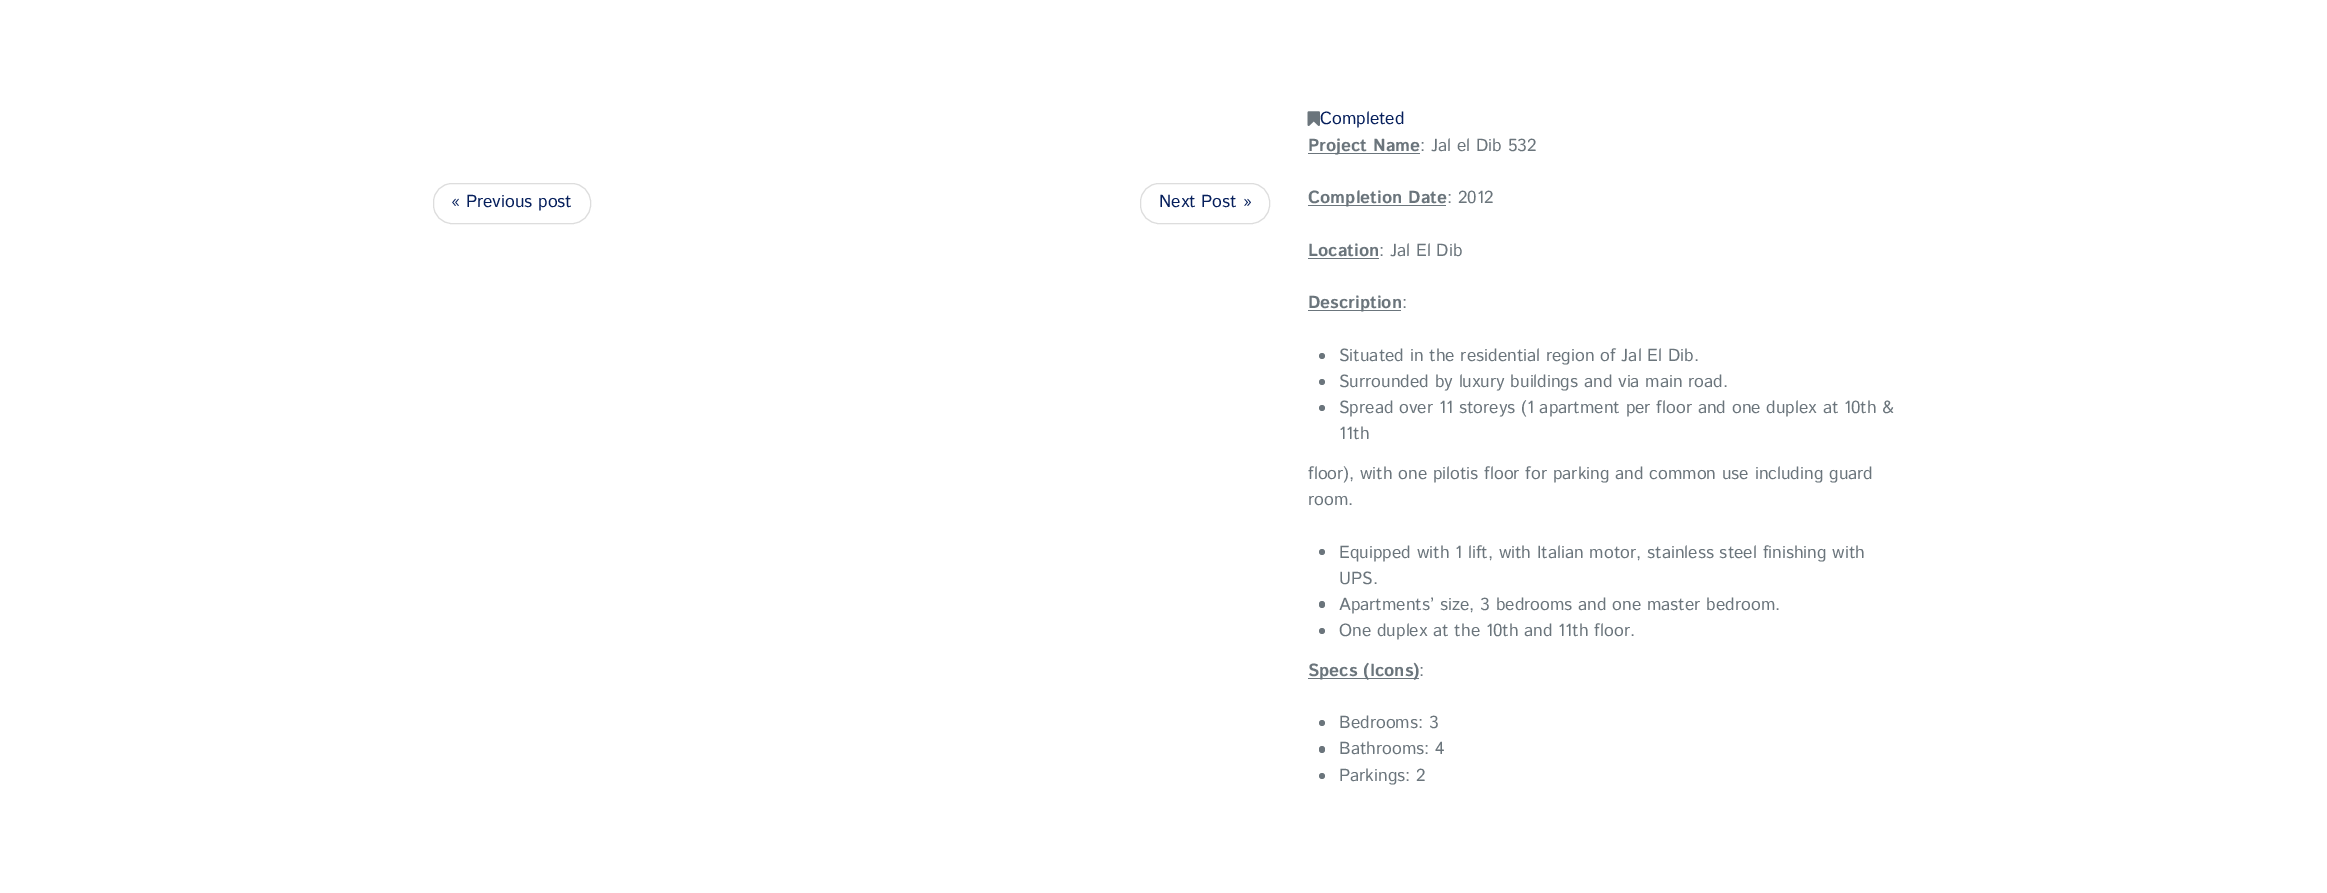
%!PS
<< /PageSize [2327 893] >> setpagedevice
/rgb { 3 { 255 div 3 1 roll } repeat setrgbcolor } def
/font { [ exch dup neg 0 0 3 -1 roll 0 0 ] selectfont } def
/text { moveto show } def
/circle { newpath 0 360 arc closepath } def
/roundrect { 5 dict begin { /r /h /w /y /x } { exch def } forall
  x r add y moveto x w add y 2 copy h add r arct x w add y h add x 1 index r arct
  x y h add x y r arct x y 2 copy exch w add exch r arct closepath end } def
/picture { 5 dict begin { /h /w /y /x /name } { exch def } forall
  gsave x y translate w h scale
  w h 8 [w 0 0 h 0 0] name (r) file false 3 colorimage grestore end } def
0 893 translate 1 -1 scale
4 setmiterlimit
255 255 255 rgb
0 0 2327 893 rectfill
221 221 221 rgb
433.5 183.5 157 40 18.5 roundrect stroke
1140.5 183.5 129 40 18.5 roundrect stroke
(img_01.rgb) 1307 111 13 15 picture
107 117 124 rgb
1308 153 112 1 rectfill
1308 205 138 1 rectfill
1308 258 71 1 rectfill
1308 310 93 1 rectfill
1322 356 3 circle fill
1322 382 3 circle fill
1322 408 3 circle fill
1322 552 3 circle fill
1319 601 6 7 3 roundrect fill
1322 631 3 circle fill
1308 678 111 1 rectfill
1322 723 3 circle fill
1319 746 6 7 3 roundrect fill
1322 776 3 circle fill
/IstokWeb-Regular 17.5 font
6 31 92 rgb
(« Previous post) 451 207 text
(Next Post ») 1159 207 text
(Completed) 1320 124 text
/IstokWeb-Bold 17.5 font
107 117 124 rgb
(Project Name) 1308 151 text
/IstokWeb-Regular 17.5 font
(: Jal el Dib 532) 1420 151 text
/IstokWeb-Bold 17.5 font
(Completion Date) 1308 203 text
/IstokWeb-Regular 17.5 font
(: 2012) 1447 203 text
/IstokWeb-Bold 17.5 font
(Location) 1308 256 text
/IstokWeb-Regular 17.5 font
(: Jal El Dib) 1379 256 text
/IstokWeb-Bold 17.5 font
(Description) 1308 308 text
/IstokWeb-Regular 17.5 font
(:) 1402 308 text
(Situated in the residential region of Jal El Dib.) 1339 361 text
(Surrounded by luxury buildings and via main road.) 1339 387 text
(Spread over 11 storeys \(1 apartment per floor and one duplex at 10th &) 1339 413 text
(11th) 1339 439 text
(floor\), with one pilotis floor for parking and common use including guard) 1308 479 text
(room.) 1308 505 text
(Equipped with 1 lift, with Italian motor, stainless steel finishing with) 1339 558 text
(UPS.) 1339 584 text
(Apartments’ size, 3 bedrooms and one master bedroom.) 1339 610 text
(One duplex at the 10th and 11th floor.) 1339 636 text
/IstokWeb-Bold 17.5 font
(Specs \(Icons\)) 1308 676 text
/IstokWeb-Regular 17.5 font
(:) 1419 676 text
(Bedrooms: 3) 1339 728 text
(Bathrooms: 4) 1339 754 text
(Parkings: 2) 1339 781 text
showpage
